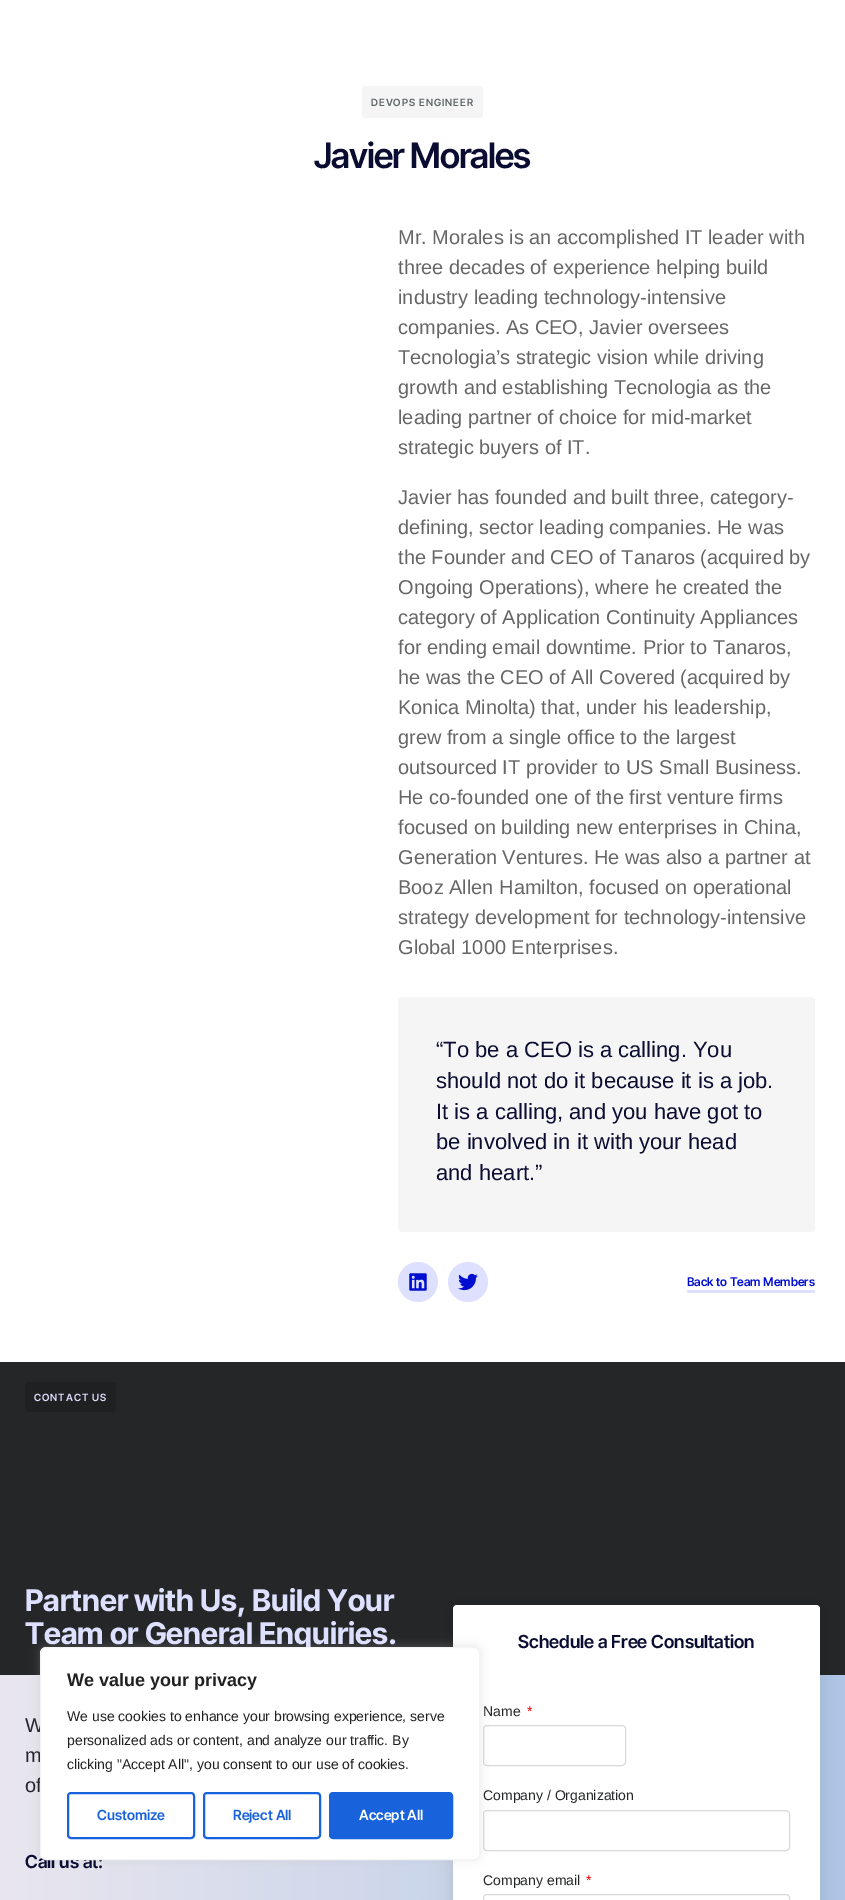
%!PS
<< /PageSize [845 1900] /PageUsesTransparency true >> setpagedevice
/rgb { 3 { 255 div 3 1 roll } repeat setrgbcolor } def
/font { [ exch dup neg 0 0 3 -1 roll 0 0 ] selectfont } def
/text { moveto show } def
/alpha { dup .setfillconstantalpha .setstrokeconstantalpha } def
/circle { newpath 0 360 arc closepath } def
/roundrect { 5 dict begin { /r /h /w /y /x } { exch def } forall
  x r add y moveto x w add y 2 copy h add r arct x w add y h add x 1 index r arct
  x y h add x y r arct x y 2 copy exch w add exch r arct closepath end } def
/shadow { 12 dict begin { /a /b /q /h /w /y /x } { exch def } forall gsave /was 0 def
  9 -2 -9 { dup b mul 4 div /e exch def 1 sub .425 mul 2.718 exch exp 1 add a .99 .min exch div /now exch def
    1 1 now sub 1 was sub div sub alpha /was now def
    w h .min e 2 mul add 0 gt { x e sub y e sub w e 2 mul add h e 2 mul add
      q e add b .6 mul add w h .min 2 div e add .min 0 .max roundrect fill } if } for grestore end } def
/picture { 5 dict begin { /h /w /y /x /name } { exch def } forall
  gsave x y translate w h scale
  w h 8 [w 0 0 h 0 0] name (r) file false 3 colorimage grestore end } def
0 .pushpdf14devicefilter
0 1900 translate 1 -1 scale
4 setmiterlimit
255 255 255 rgb
0 0 845 1900 rectfill
245 245 245 rgb
362 86 121 32 4 roundrect fill
398 997 417 235 4 roundrect fill
222 224 255 rgb
418 1282 20 circle fill
(img_01.rgb) 409 1273 18 18 picture
468 1282 20 circle fill
(img_02.rgb) 458 1273 20 18 picture
687 1290 128 3 rectfill
36 38 39 rgb
0 1362 845 313 rectfill
31 32 33 rgb
25 1382 91 30 4 roundrect fill
gsave 0 1675 moveto 845 0 rlineto 0 225 rlineto -845 0 rlineto closepath clip newpath
<< /ShadingType 2 /ColorSpace /DeviceRGB /Coords [0 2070 845 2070] /Extend [true true] /Function << /FunctionType 2 /Domain [0 1] /C0 [0.914 0.902 0.937] /C1 [0.686 0.776 0.902] /N 1 >> >> shfill grestore
0 0 0 rgb
453 1605 367 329 4 10 0.1 shadow
255 255 255 rgb
453 1605 367 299 4 roundrect fill
217 217 217 rgb
483.5 1725.5 142 40 3.5 roundrect stroke
483.5 1810.5 306 40 3.5 roundrect stroke
483.5 1894.5 306 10 3.5 roundrect stroke
172 171 171 rgb
40 1646 440 213 6 5 0.3 shadow
/InterTight-SemiBold 10 font
95 101 103 rgb
371 106 moveto 1 0 (DEVOPS ENGINEER) ashow
/InterTight-SemiBold 35 font
10 13 49 rgb
314 168 moveto -1 0 (Javier Morales) ashow
/LiberationSans-Regular 20 font
102 102 102 rgb
(Mr. Morales is an accomplished IT leader with) 398 244 text
(three decades of experience helping build) 398 274 text
(industry leading technology-intensive) 398 304 text
(companies. As CEO, Javier oversees) 398 334 text
(Tecnologia’s strategic vision while driving) 398 364 text
(growth and establishing Tecnologia as the) 398 394 text
(leading partner of choice for mid-market) 398 424 text
(strategic buyers of IT.) 398 454 text
(Javier has founded and built three, category-) 398 504 text
(defining, sector leading companies. He was) 398 534 text
(the Founder and CEO of Tanaros \(acquired by) 398 564 text
(Ongoing Operations\), where he created the) 398 594 text
(category of Application Continuity Appliances) 398 624 text
(for ending email downtime. Prior to Tanaros,) 398 654 text
(he was the CEO of All Covered \(acquired by) 398 684 text
(Konica Minolta\) that, under his leadership,) 398 714 text
(grew from a single office to the largest) 398 744 text
(outsourced IT provider to US Small Business.) 398 774 text
(He co-founded one of the first venture firms) 398 804 text
(focused on building new enterprises in China,) 398 834 text
(Generation Ventures. He was also a partner at) 398 864 text
(Booz Allen Hamilton, focused on operational) 398 894 text
(strategy development for technology-intensive) 398 924 text
(Global 1000 Enterprises.) 398 954 text
/LiberationSans-Regular 22 font
10 13 49 rgb
(“To be a CEO is a calling. You) 436 1057 text
(should not do it because it is a job.) 436 1088 text
(It is a calling, and you have got to) 436 1119 text
(be involved in it with your head) 436 1149 text
(and heart.”) 436 1180 text
/InterTight-SemiBold 12 font
1 14 208 rgb
(Back to Team Members) 687 1286 text
/InterTight-SemiBold 10 font
222 224 255 rgb
34 1401 moveto 1 0 (CONTACT US) ashow
/InterTight-Bold 30 font
(Partner with Us, Build Your) 25 1611 text
(Team or General Enquiries.) 25 1644 text
/LiberationSans-Regular 20 font
36 38 39 rgb
(W) 25 1732 text
(m) 25 1762 text
(of) 25 1792 text
/InterTight-SemiBold 18 font
10 13 49 rgb
(Call us at:) 25 1868 text
(Schedule a Free Consultation) 518 1648 text
/LiberationSans-Regular 14 font
36 38 39 rgb
(Name) 483 1716 text
255 0 0 rgb
(*) 527 1716 text
36 38 39 rgb
(Company / Organization) 483 1800 text
(Company email) 483 1885 text
255 0 0 rgb
(*) 586 1885 text
255 255 255 rgb
40.5 1647.5 439 212 5.5 roundrect gsave fill grestore
244 244 244 rgb
stroke
/LiberationSans-Bold 18 font
33 33 33 rgb
(We value your privacy) 67 1686 text
/LiberationSans-Regular 14 font
(We use cookies to enhance your browsing experience, serve) 67 1721 text
(personalized ads or content, and analyze our traffic. By) 67 1745 text
(clicking "Accept All", you consent to our use of cookies.) 67 1769 text
24 99 220 rgb
2 setlinewidth
68 1793 126 45 3 roundrect stroke
/InterTight-SemiBold 14 font
(Customize) 97 1820 text
204 1793 116 45 3 roundrect stroke
(Reject All) 233 1820 text
330 1793 122 45 3 roundrect gsave fill grestore
stroke
255 255 255 rgb
(Accept All) 359 1820 text
.poppdf14devicefilter showpage
